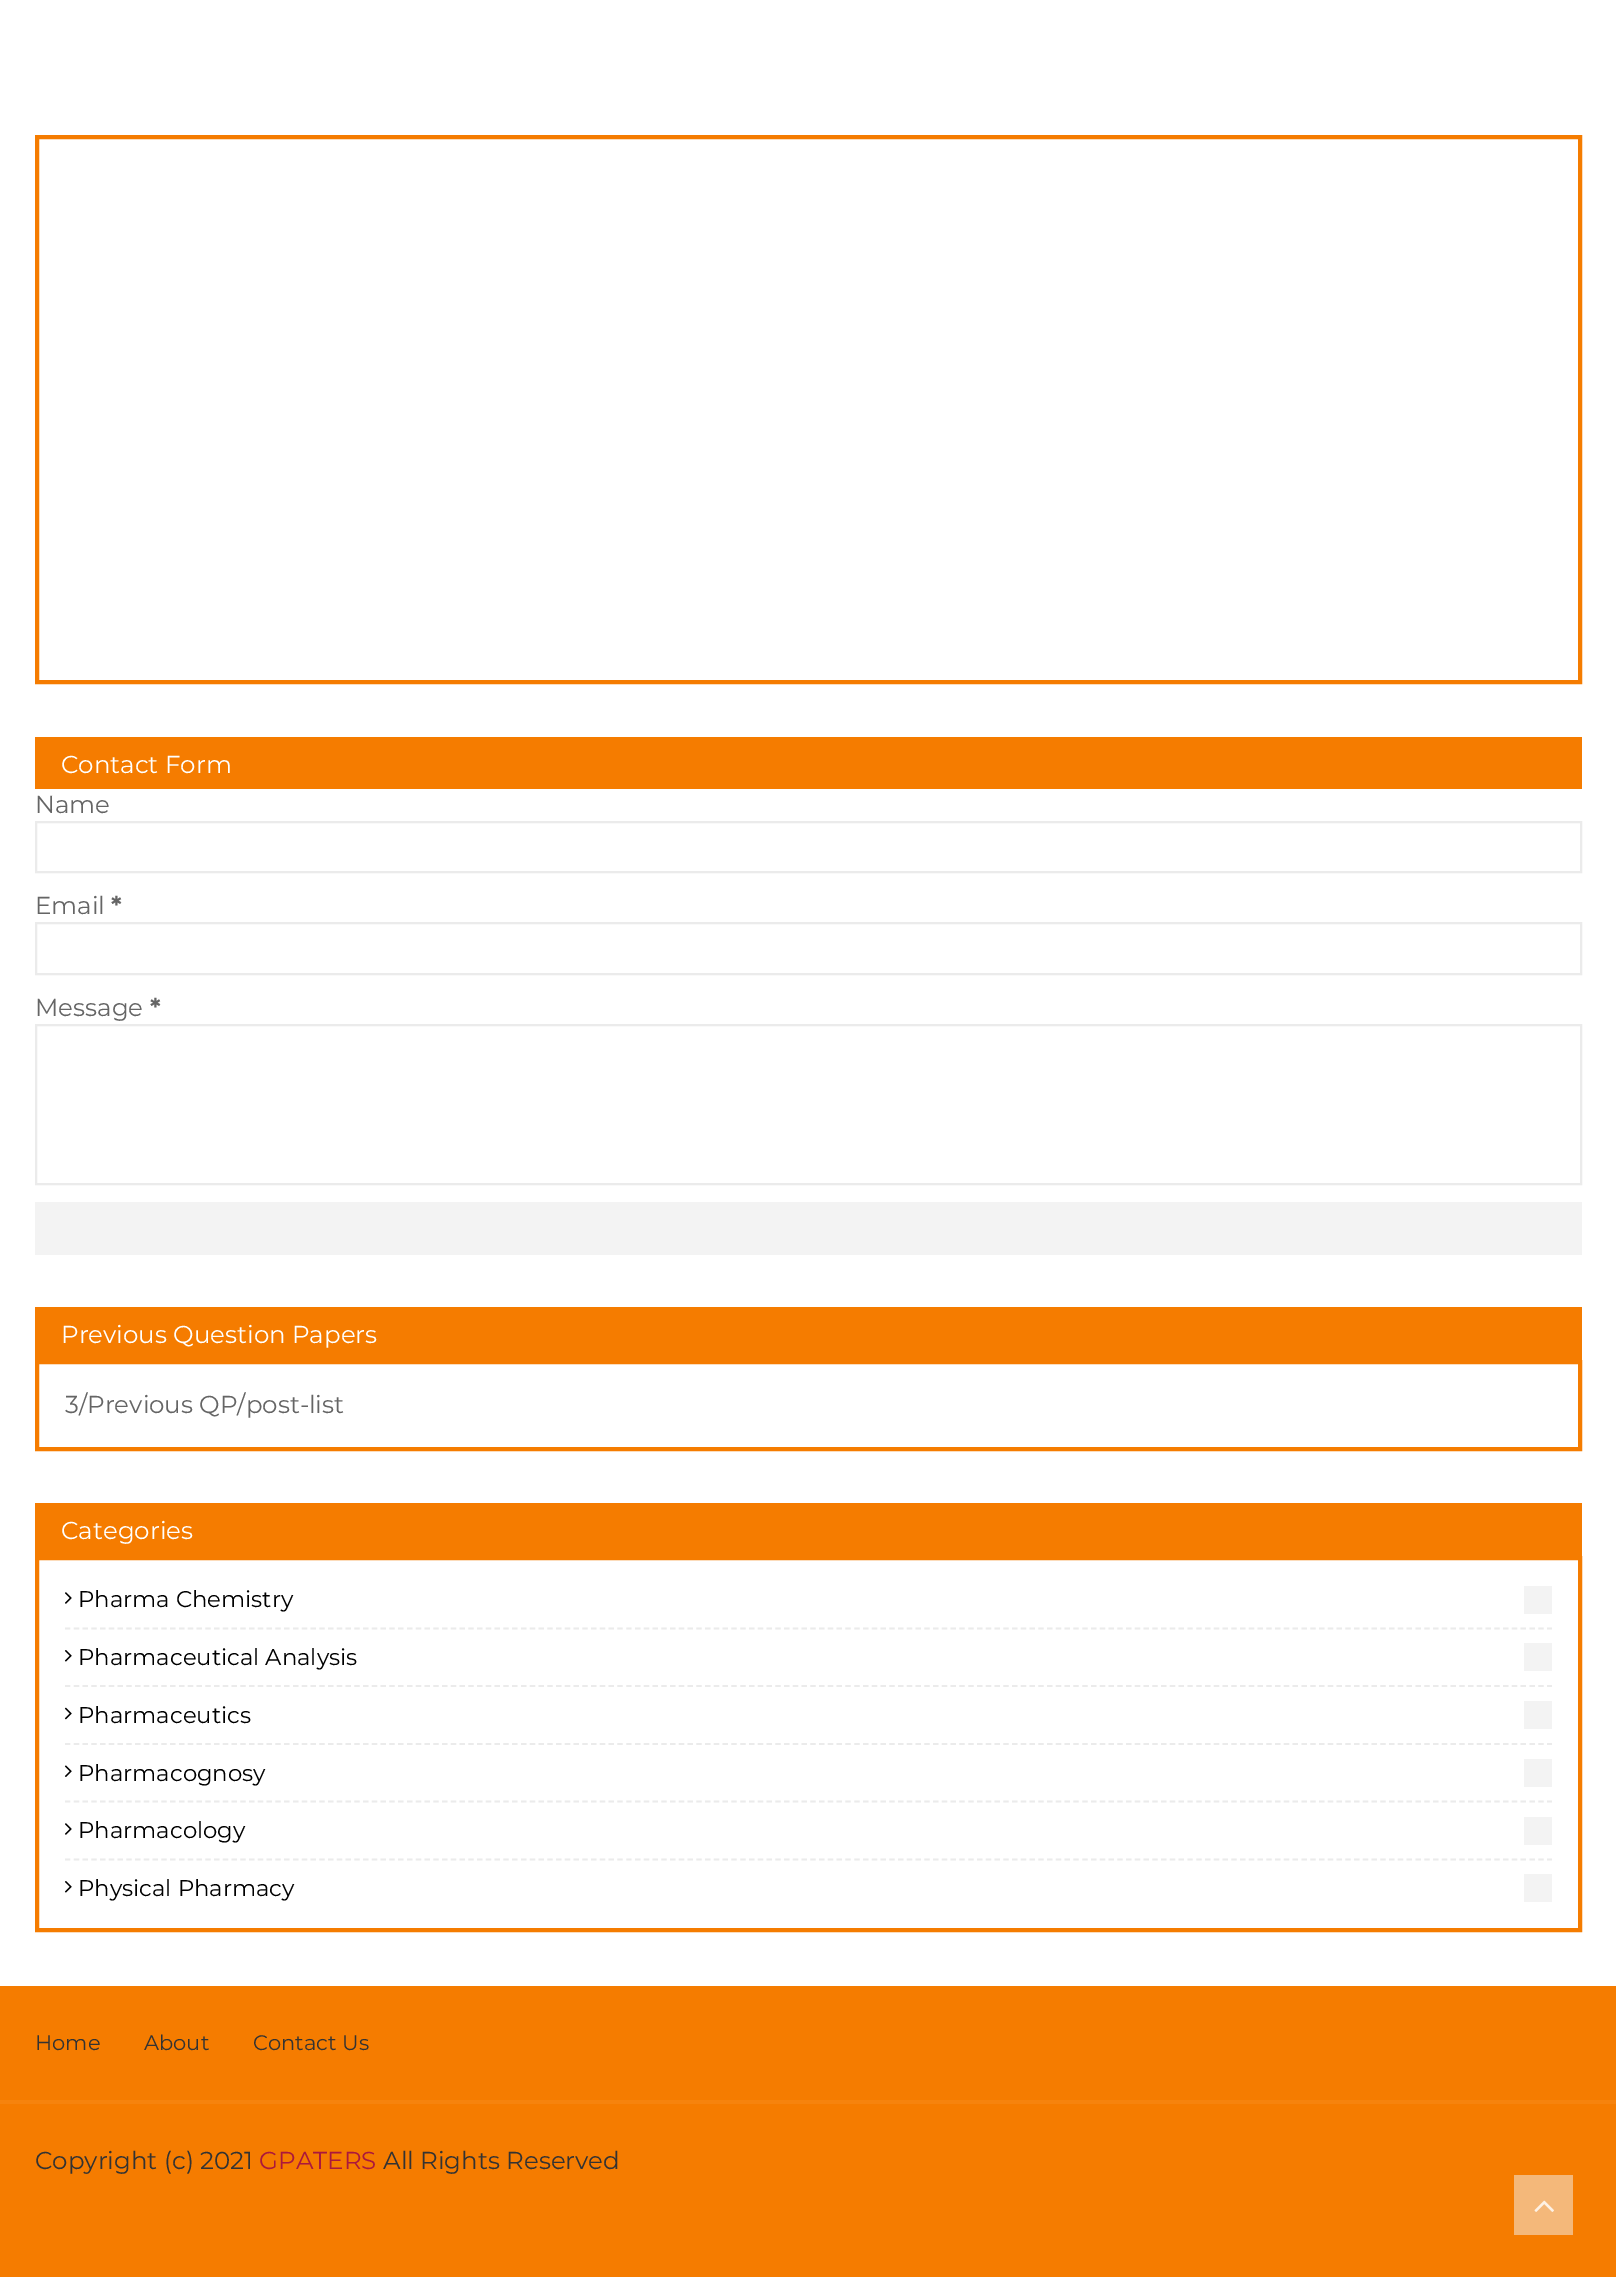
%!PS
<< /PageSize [1616 2277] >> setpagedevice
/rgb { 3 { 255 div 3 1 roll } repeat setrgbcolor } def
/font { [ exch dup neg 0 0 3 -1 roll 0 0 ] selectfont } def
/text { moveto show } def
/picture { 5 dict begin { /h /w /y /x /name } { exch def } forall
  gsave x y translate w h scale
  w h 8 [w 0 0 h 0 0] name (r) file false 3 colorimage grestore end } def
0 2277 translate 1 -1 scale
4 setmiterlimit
255 255 255 rgb
0 0 1616 2277 rectfill
245 124 0 rgb
4 setlinewidth
37 137 1543 545 rectstroke
35 737 1547 52 rectfill
235 235 235 rgb
2 setlinewidth
36 822 1545 50 rectstroke
36 923 1545 51 rectstroke
36 1025 1545 159 rectstroke
243 243 243 rgb
35 1202 1547 53 rectfill
245 124 0 rgb
35 1307 1547 53 rectfill
4 setlinewidth
37 1362 1543 87 rectstroke
35 1503 1547 53 rectfill
37 1558 1543 372 rectstroke
(img_01.rgb) 65 1592 7 12 picture
243 243 243 rgb
1524 1586 28 28 rectfill
235 235 235 rgb
1.8 setlinewidth
[5.25 3.52] 0 setdash
65 1628.5 moveto 1487 0 rlineto stroke
(img_02.rgb) 64 1650 8 12 picture
243 243 243 rgb
1524 1643 28 28 rectfill
235 235 235 rgb
65 1686 moveto 1487 0 rlineto stroke
(img_03.rgb) 64 1707 8 13 picture
243 243 243 rgb
1524 1701 28 28 rectfill
235 235 235 rgb
65 1744 moveto 1487 0 rlineto stroke
(img_04.rgb) 64 1765 8 12 picture
243 243 243 rgb
1524 1759 28 28 rectfill
235 235 235 rgb
65 1801.5 moveto 1487 0 rlineto stroke
(img_01.rgb) 65 1823 7 12 picture
243 243 243 rgb
1524 1817 28 28 rectfill
235 235 235 rgb
65 1859.5 moveto 1487 0 rlineto stroke
(img_02.rgb) 64 1881 8 12 picture
243 243 243 rgb
1524 1874 28 28 rectfill
245 124 0 rgb
0 1986 1616 291 rectfill
246 131 13 rgb
0 2100 1616 4 rectfill
244 184 122 rgb
1514 2175 59 60 rectfill
(img_05.rgb) 1534 2200 20 12 picture
/Montserrat-Thin 24.5 font
255 255 255 rgb
(Contact Form) 61 773 text
101 101 101 rgb
(Name) 35 813 text
(Email) 35 914 text
/Montserrat-Bold 24.5 font
(*) 111 914 text
/Montserrat-Thin 24.5 font
(Message) 35 1016 text
/Montserrat-Bold 24.5 font
(*) 150 1016 text
/Montserrat-Thin 24.5 font
255 255 255 rgb
(Previous Question Papers) 61 1343 text
101 101 101 rgb
(3/Previous QP/post-list) 65 1413 text
255 255 255 rgb
(Categories) 61 1539 text
/Montserrat-Thin 22.75 font
0 0 0 rgb
(Pharma Chemistry) 78 1607 text
(Pharmaceutical Analysis) 78 1665 text
(Pharmaceutics) 78 1723 text
(Pharmacognosy) 78 1781 text
(Pharmacology) 78 1838 text
(Physical Pharmacy) 78 1896 text
/Montserrat-Thin 21 font
51 51 51 rgb
(Home) 35 2050 text
(About) 144 2050 text
(Contact Us) 253 2050 text
/Montserrat-Thin 24.5 font
(Copyright \(c\) 2021) 35 2169 text
171 24 61 rgb
(GPATERS) 259 2169 text
51 51 51 rgb
(All Rights Reserved) 383 2169 text
showpage
